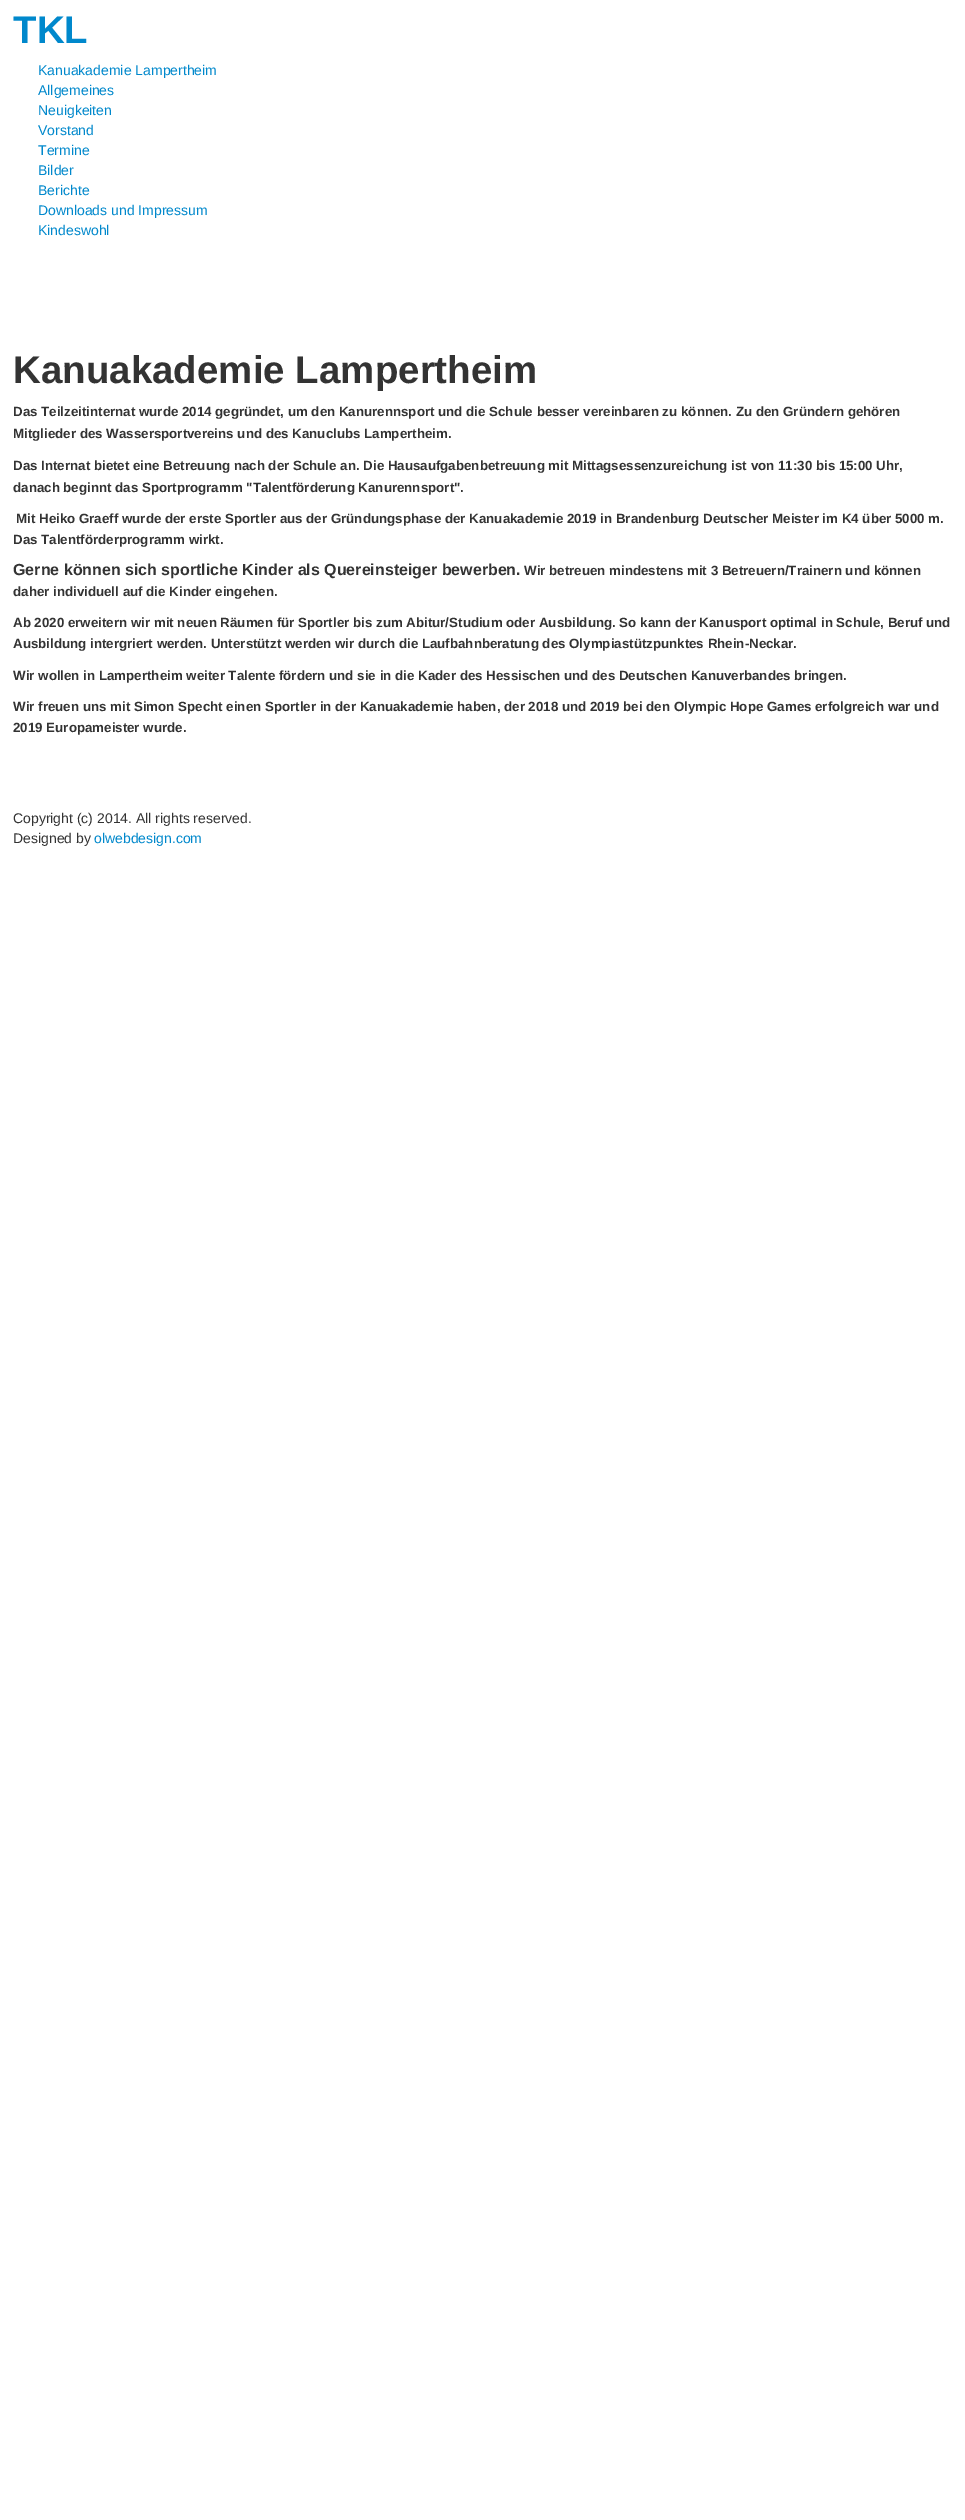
%!PS
<< /PageSize [965 2520] >> setpagedevice
/rgb { 3 { 255 div 3 1 roll } repeat setrgbcolor } def
/font { [ exch dup neg 0 0 3 -1 roll 0 0 ] selectfont } def
/text { moveto show } def
0 2520 translate 1 -1 scale
4 setmiterlimit
255 255 255 rgb
0 0 965 2520 rectfill
/LiberationSans-Bold 38.5 font
0 136 204 rgb
(TKL) 13 43 text
/LiberationSans-Regular 14 font
(Kanuakademie Lampertheim) 38 75 text
(Allgemeines) 38 95 text
(Neuigkeiten) 38 115 text
(Vorstand) 38 135 text
(Termine) 38 155 text
(Bilder) 38 175 text
(Berichte) 38 195 text
(Downloads und Impressum) 38 215 text
(Kindeswohl) 38 235 text
/LiberationSans-Bold 38.5 font
51 51 51 rgb
(Kanuakademie Lampertheim) 13 383 text
/LiberationSans-Bold 13.33 font
(Das Teilzeitinternat wurde 2014 gegründet, um den Kanurennsport und die Schule besser vereinbaren zu können. Zu den Gründern gehören) 13 416 text
(Mitglieder des Wassersportvereins und des Kanuclubs Lampertheim.) 13 438 text
(Das Internat bietet eine Betreuung nach der Schule an. Die Hausaufgabenbetreuung mit Mittagsessenzureichung ist von 11:30 bis 15:00 Uhr,) 13 470 text
(danach beginnt das Sportprogramm "Talentförderung Kanurennsport".) 13 492 text
(Mit Heiko Graeff wurde der erste Sportler aus der Gründungsphase der Kanuakademie 2019 in Brandenburg Deutscher Meister im K4 über 5000 m.) 16 523 text
(Das Talentförderprogramm wirkt.) 13 544 text
/LiberationSans-Bold 16 font
(Gerne können sich sportliche Kinder als Quereinsteiger bewerben.) 13 575 text
/LiberationSans-Bold 13.33 font
(Wir betreuen mindestens mit 3 Betreuern/Trainern und können) 524 575 text
(daher individuell auf die Kinder eingehen.) 13 596 text
(Ab 2020 erweitern wir mit neuen Räumen für Sportler bis zum Abitur/Studium oder Ausbildung. So kann der Kanusport optimal in Schule, Beruf und) 13 627 text
(Ausbildung intergriert werden. Unterstützt werden wir durch die Laufbahnberatung des Olympiastützpunktes Rhein-Neckar.) 13 648 text
(Wir wollen in Lampertheim weiter Talente fördern und sie in die Kader des Hessischen und des Deutschen Kanuverbandes bringen.) 13 680 text
(Wir freuen uns mit Simon Specht einen Sportler in der Kanuakademie haben, der 2018 und 2019 bei den Olympic Hope Games erfolgreich war und) 13 711 text
(2019 Europameister wurde.) 13 732 text
/LiberationSans-Regular 14 font
(Copyright \(c\) 2014. All rights reserved.) 13 823 text
(Designed by) 13 843 text
0 136 204 rgb
(olwebdesign.com) 94 843 text
showpage
